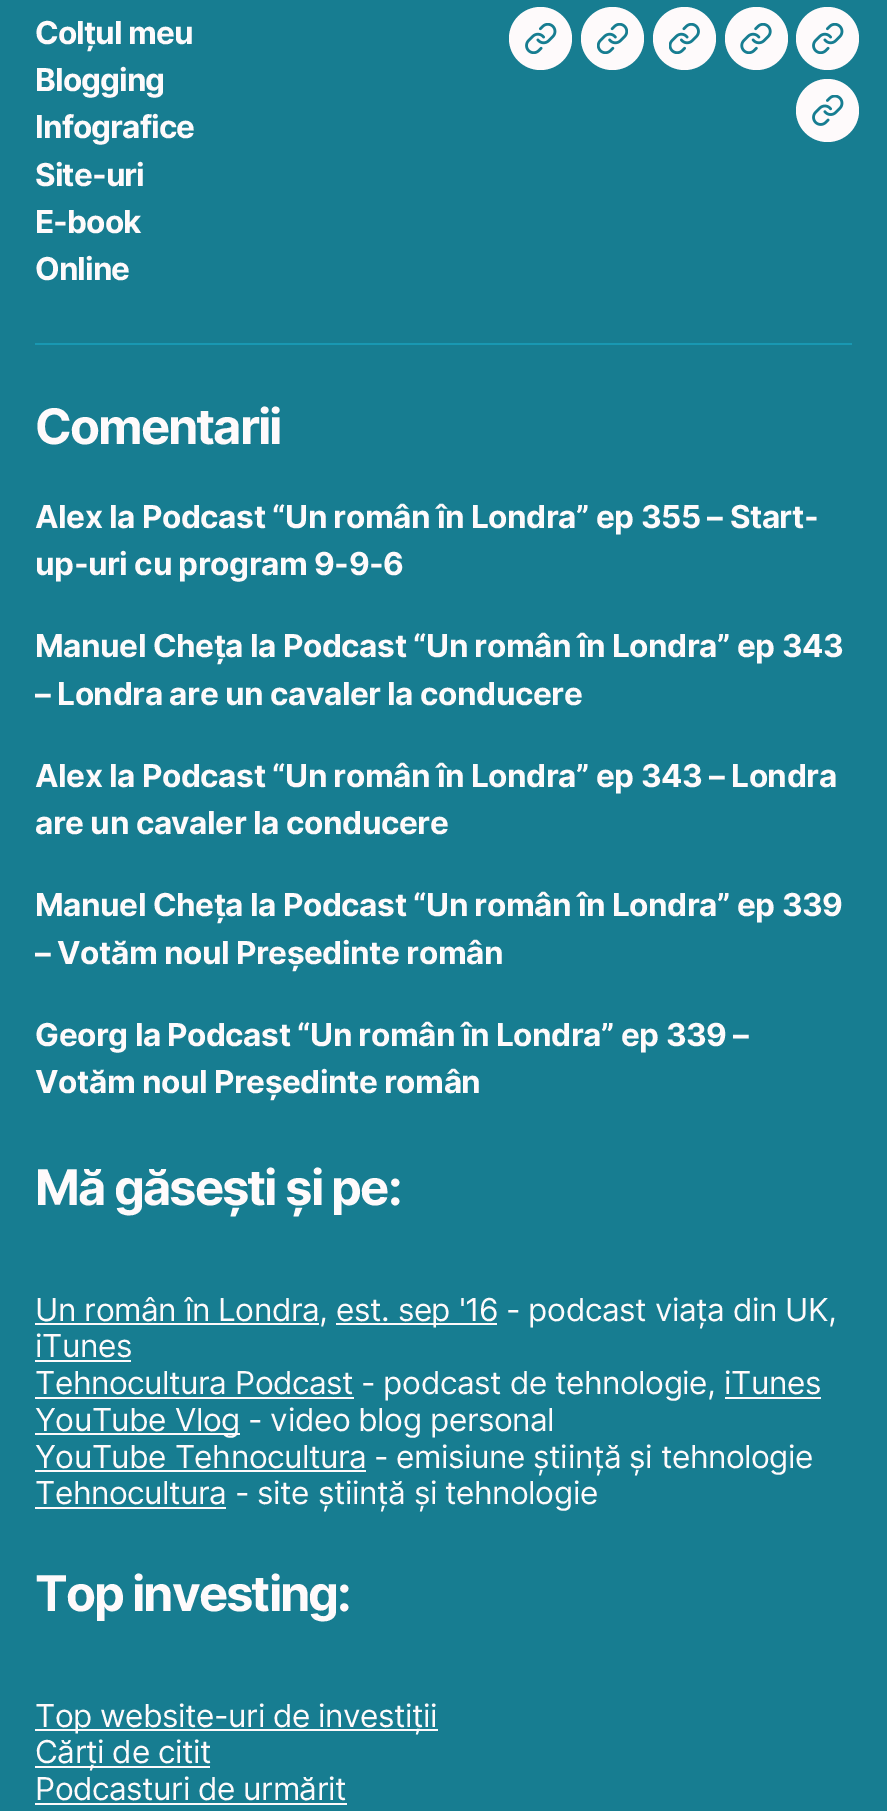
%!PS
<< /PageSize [887 1811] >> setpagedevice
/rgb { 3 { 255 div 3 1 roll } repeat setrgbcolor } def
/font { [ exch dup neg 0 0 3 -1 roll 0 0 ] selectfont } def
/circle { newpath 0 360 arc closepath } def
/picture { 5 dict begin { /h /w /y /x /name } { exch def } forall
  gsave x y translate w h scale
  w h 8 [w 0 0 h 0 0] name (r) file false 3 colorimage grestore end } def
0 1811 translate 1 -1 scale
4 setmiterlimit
23 125 145 rgb
0 0 887 1811 rectfill
25 152 178 rgb
35 343 817 2 rectfill
254 250 251 rgb
540.5 38.5 31.5 circle fill
(img_01.rgb) 525 23 32 31 picture
612.5 38.5 31.5 circle fill
(img_02.rgb) 597 23 31 31 picture
684.5 38.5 31.5 circle fill
(img_03.rgb) 669 23 31 31 picture
756.5 38.5 31.5 circle fill
(img_04.rgb) 740 23 32 31 picture
827.5 38.5 31.5 circle fill
(img_01.rgb) 812 23 32 31 picture
827.5 110.5 31.5 circle fill
(img_05.rgb) 812 95 32 31 picture
35 1323 284 2 rectfill
336 1323 161 2 rectfill
35 1360 96 2 rectfill
35 1397 319 2 rectfill
725 1397 96 2 rectfill
35 1433 205 2 rectfill
35 1470 331 2 rectfill
35 1507 191 2 rectfill
35 1729 403 2 rectfill
35 1766 175 2 rectfill
35 1803 312 2 rectfill
/Inter-Bold 31.5 font
35 44 moveto -0.9 0 (Colțul meu) ashow
35 91 moveto -0.9 0 (Blogging) ashow
35 138 moveto -0.9 0 (Infografice) ashow
35 186 moveto -0.9 0 (Site-uri) ashow
35 233 moveto -0.9 0 (E-book) ashow
35 280 moveto -0.9 0 (Online) ashow
/Inter-Bold 49 font
35 444 moveto -2 0 (Comentarii) ashow
/Inter-Bold 31.5 font
35 528 moveto -0.45 0 (Alex la) ashow
142 528 moveto -0.45 0 (Podcast “Un român în Londra” ep 355 – Start-) ashow
35 575 moveto -0.45 0 (up-uri cu program 9-9-6) ashow
35 657 moveto -0.45 0 (Manuel Cheța) ashow
250 657 moveto -0.45 0 (la) ashow
283 657 moveto -0.45 0 (Podcast “Un român în Londra” ep 343) ashow
35 705 moveto -0.45 0 (– Londra are un cavaler la conducere) ashow
35 787 moveto -0.45 0 (Alex la) ashow
142 787 moveto -0.45 0 (Podcast “Un român în Londra” ep 343 – Londra) ashow
35 834 moveto -0.45 0 (are un cavaler la conducere) ashow
35 916 moveto -0.45 0 (Manuel Cheța) ashow
250 916 moveto -0.45 0 (la) ashow
283 916 moveto -0.45 0 (Podcast “Un român în Londra” ep 339) ashow
35 964 moveto -0.45 0 (– Votăm noul Președinte român) ashow
35 1046 moveto -0.45 0 (Georg la) ashow
167 1046 moveto -0.45 0 (Podcast “Un român în Londra” ep 339 –) ashow
35 1093 moveto -0.45 0 (Votăm noul Președinte român) ashow
/Inter-Bold 49 font
35 1205 moveto -2 0 (Mă găsești și pe:) ashow
/Inter-Regular 31.5 font
35 1321 moveto -0.45 0 (Un român în Londra) ashow
319 1321 moveto -0.45 0 (,) ashow
336 1321 moveto -0.45 0 (est. sep '16) ashow
506 1321 moveto -0.45 0 (- podcast viața din UK,) ashow
35 1357 moveto -0.45 0 (iTunes) ashow
35 1394 moveto -0.45 0 (Tehnocultura Podcast) ashow
361 1394 moveto -0.45 0 (- podcast de tehnologie,) ashow
724 1394 moveto -0.45 0 (iTunes) ashow
35 1431 moveto -0.45 0 (YouTube Vlog) ashow
248 1431 moveto -0.45 0 (- video blog personal) ashow
35 1468 moveto -0.45 0 (YouTube Tehnocultura) ashow
374 1468 moveto -0.45 0 (- emisiune știință și tehnologie) ashow
35 1504 moveto -0.45 0 (Tehnocultura) ashow
235 1504 moveto -0.45 0 (- site știință și tehnologie) ashow
/Inter-Bold 49 font
35 1611 moveto -2 0 (Top investing:) ashow
/Inter-Regular 31.5 font
35 1727 moveto -0.45 0 (Top website-uri de investiții) ashow
35 1763 moveto -0.45 0 (Cărți de citit) ashow
35 1800 moveto -0.45 0 (Podcasturi de urmărit) ashow
showpage
